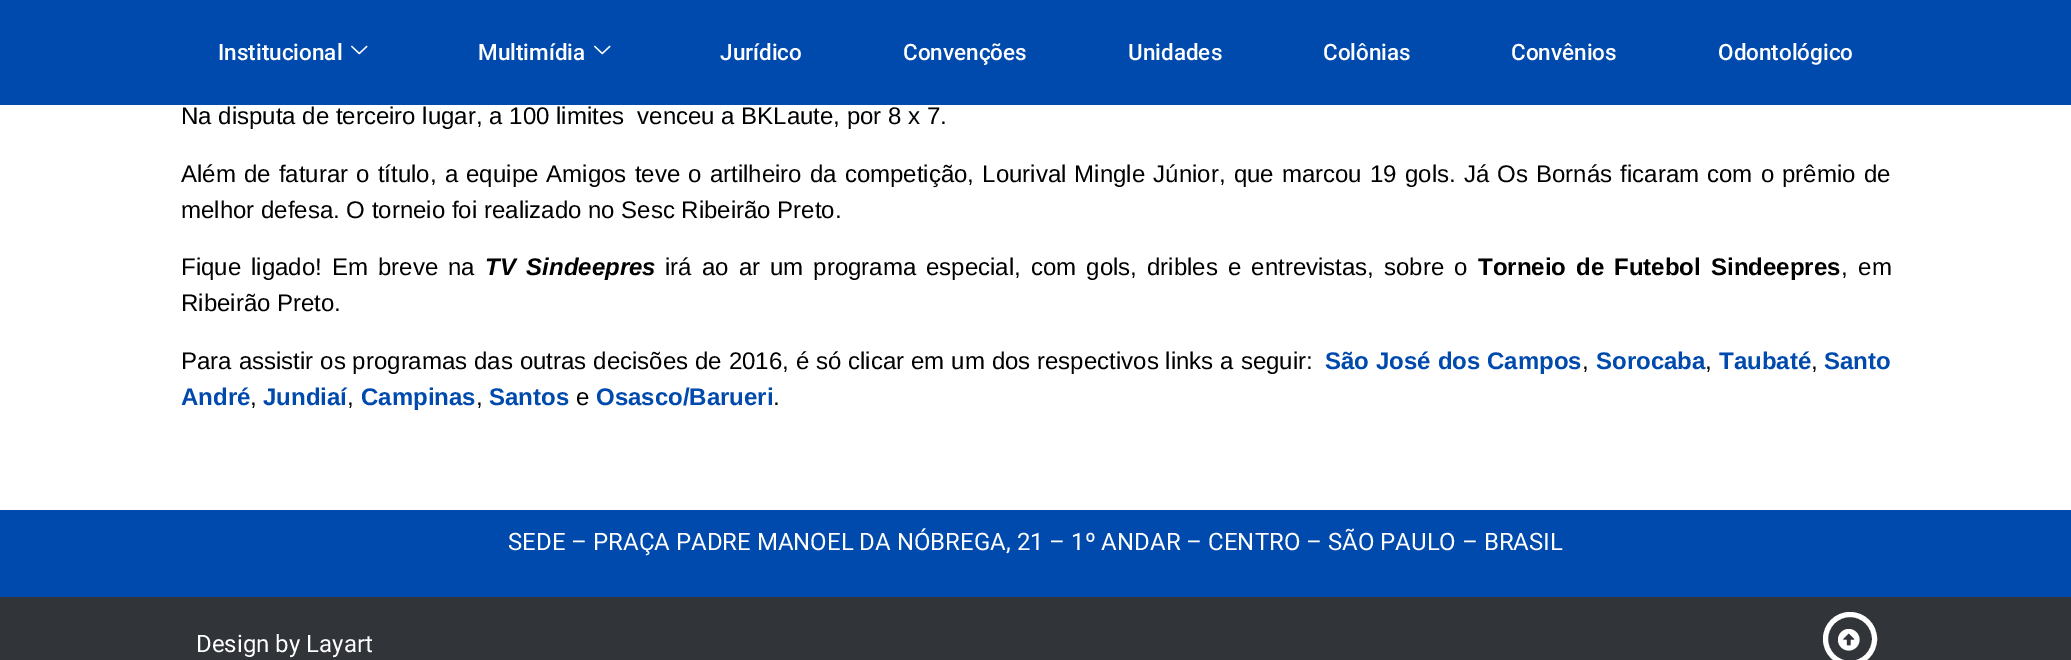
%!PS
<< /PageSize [2071 660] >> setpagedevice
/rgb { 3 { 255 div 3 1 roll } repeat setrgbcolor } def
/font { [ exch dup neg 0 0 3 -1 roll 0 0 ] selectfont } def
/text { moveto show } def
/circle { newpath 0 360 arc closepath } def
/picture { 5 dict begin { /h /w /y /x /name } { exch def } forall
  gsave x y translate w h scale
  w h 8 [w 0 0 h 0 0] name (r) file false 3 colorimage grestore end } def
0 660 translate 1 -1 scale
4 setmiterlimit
255 255 255 rgb
0 0 2071 660 rectfill
0 74 173 rgb
0 0 2071 105 rectfill
(img_01.rgb) 351 45 17 10 picture
(img_01.rgb) 594 45 17 10 picture
0 510 2071 87 rectfill
49 52 56 rgb
0 597 2071 63 rectfill
255 255 255 rgb
5 setlinewidth
1850 639 24.5 circle stroke
(img_02.rgb) 1838 629 22 22 picture
/Roboto-Medium 22.5 font
(Institucional) 218 60 text
(Multimídia) 478 60 text
(Jurídico) 720 60 text
(Convenções) 903 60 text
(Unidades) 1128 60 text
(Colônias) 1323 60 text
(Convênios) 1511 60 text
(Odontológico) 1718 60 text
/LiberationSans-Regular 24 font
0 0 0 rgb
(Na disputa de terceiro lugar, a 100 limites  venceu a BKLaute, por 8 x 7.) 181 124 text
181 182 moveto 1.5 0 32 (Além de faturar o título, a equipe Amigos teve o artilheiro da competição, Lourival Mingle Júnior, que marcou 19 gols. Já Os Bornás ficaram com o prêmio de) widthshow
(melhor defesa. O torneio foi realizado no Sesc Ribeirão Preto.) 181 218 text
181 275 moveto 3.4 0 32 (Fique ligado! Em breve na) widthshow
/LiberationSans-BoldItalic 24 font
485 275 moveto 4 0 32 (TV Sindeepres) widthshow
/LiberationSans-Regular 24 font
665 275 moveto 3.4 0 32 (irá ao ar um programa especial, com gols, dribles e entrevistas, sobre o) widthshow
/LiberationSans-Bold 24 font
1478 275 moveto 3.4 0 32 (Torneio de Futebol Sindeepres) widthshow
/LiberationSans-Regular 24 font
1841 275 moveto 4 0 32 (, em) widthshow
(Ribeirão Preto.) 181 311 text
181 369 moveto 0.25 0 32 (Para assistir os programas das outras decisões de 2016, é só clicar em um dos respectivos links a seguir:) widthshow
/LiberationSans-Bold 24 font
0 74 173 rgb
1325 369 moveto 0.25 0 32 (São José dos Campos) widthshow
/LiberationSans-Regular 24 font
0 0 0 rgb
(,) 1582 369 text
/LiberationSans-Bold 24 font
0 74 173 rgb
(Sorocaba) 1596 369 text
/LiberationSans-Regular 24 font
0 0 0 rgb
(,) 1705 369 text
/LiberationSans-Bold 24 font
0 74 173 rgb
(Taubaté) 1719 369 text
/LiberationSans-Regular 24 font
0 0 0 rgb
(,) 1811 369 text
/LiberationSans-Bold 24 font
0 74 173 rgb
(Santo) 1824 369 text
(André) 181 405 text
/LiberationSans-Regular 24 font
0 0 0 rgb
(,) 250 405 text
/LiberationSans-Bold 24 font
0 74 173 rgb
(Jundiaí) 263 405 text
/LiberationSans-Regular 24 font
0 0 0 rgb
(,) 347 405 text
/LiberationSans-Bold 24 font
0 74 173 rgb
(Campinas) 361 405 text
/LiberationSans-Regular 24 font
0 0 0 rgb
(,) 476 405 text
/LiberationSans-Bold 24 font
0 74 173 rgb
(Santos) 489 405 text
/LiberationSans-Regular 24 font
0 0 0 rgb
(e) 576 405 text
/LiberationSans-Bold 24 font
0 74 173 rgb
(Osasco/Barueri) 596 405 text
/LiberationSans-Regular 24 font
0 0 0 rgb
(.) 773 405 text
/Roboto-Regular 24 font
255 255 255 rgb
(SEDE – PRAÇA PADRE MANOEL DA NÓBREGA, 21 – 1º ANDAR – CENTRO – SÃO PAULO – BRASIL) 508 550 text
(Design by Layart) 196 652 text
showpage
